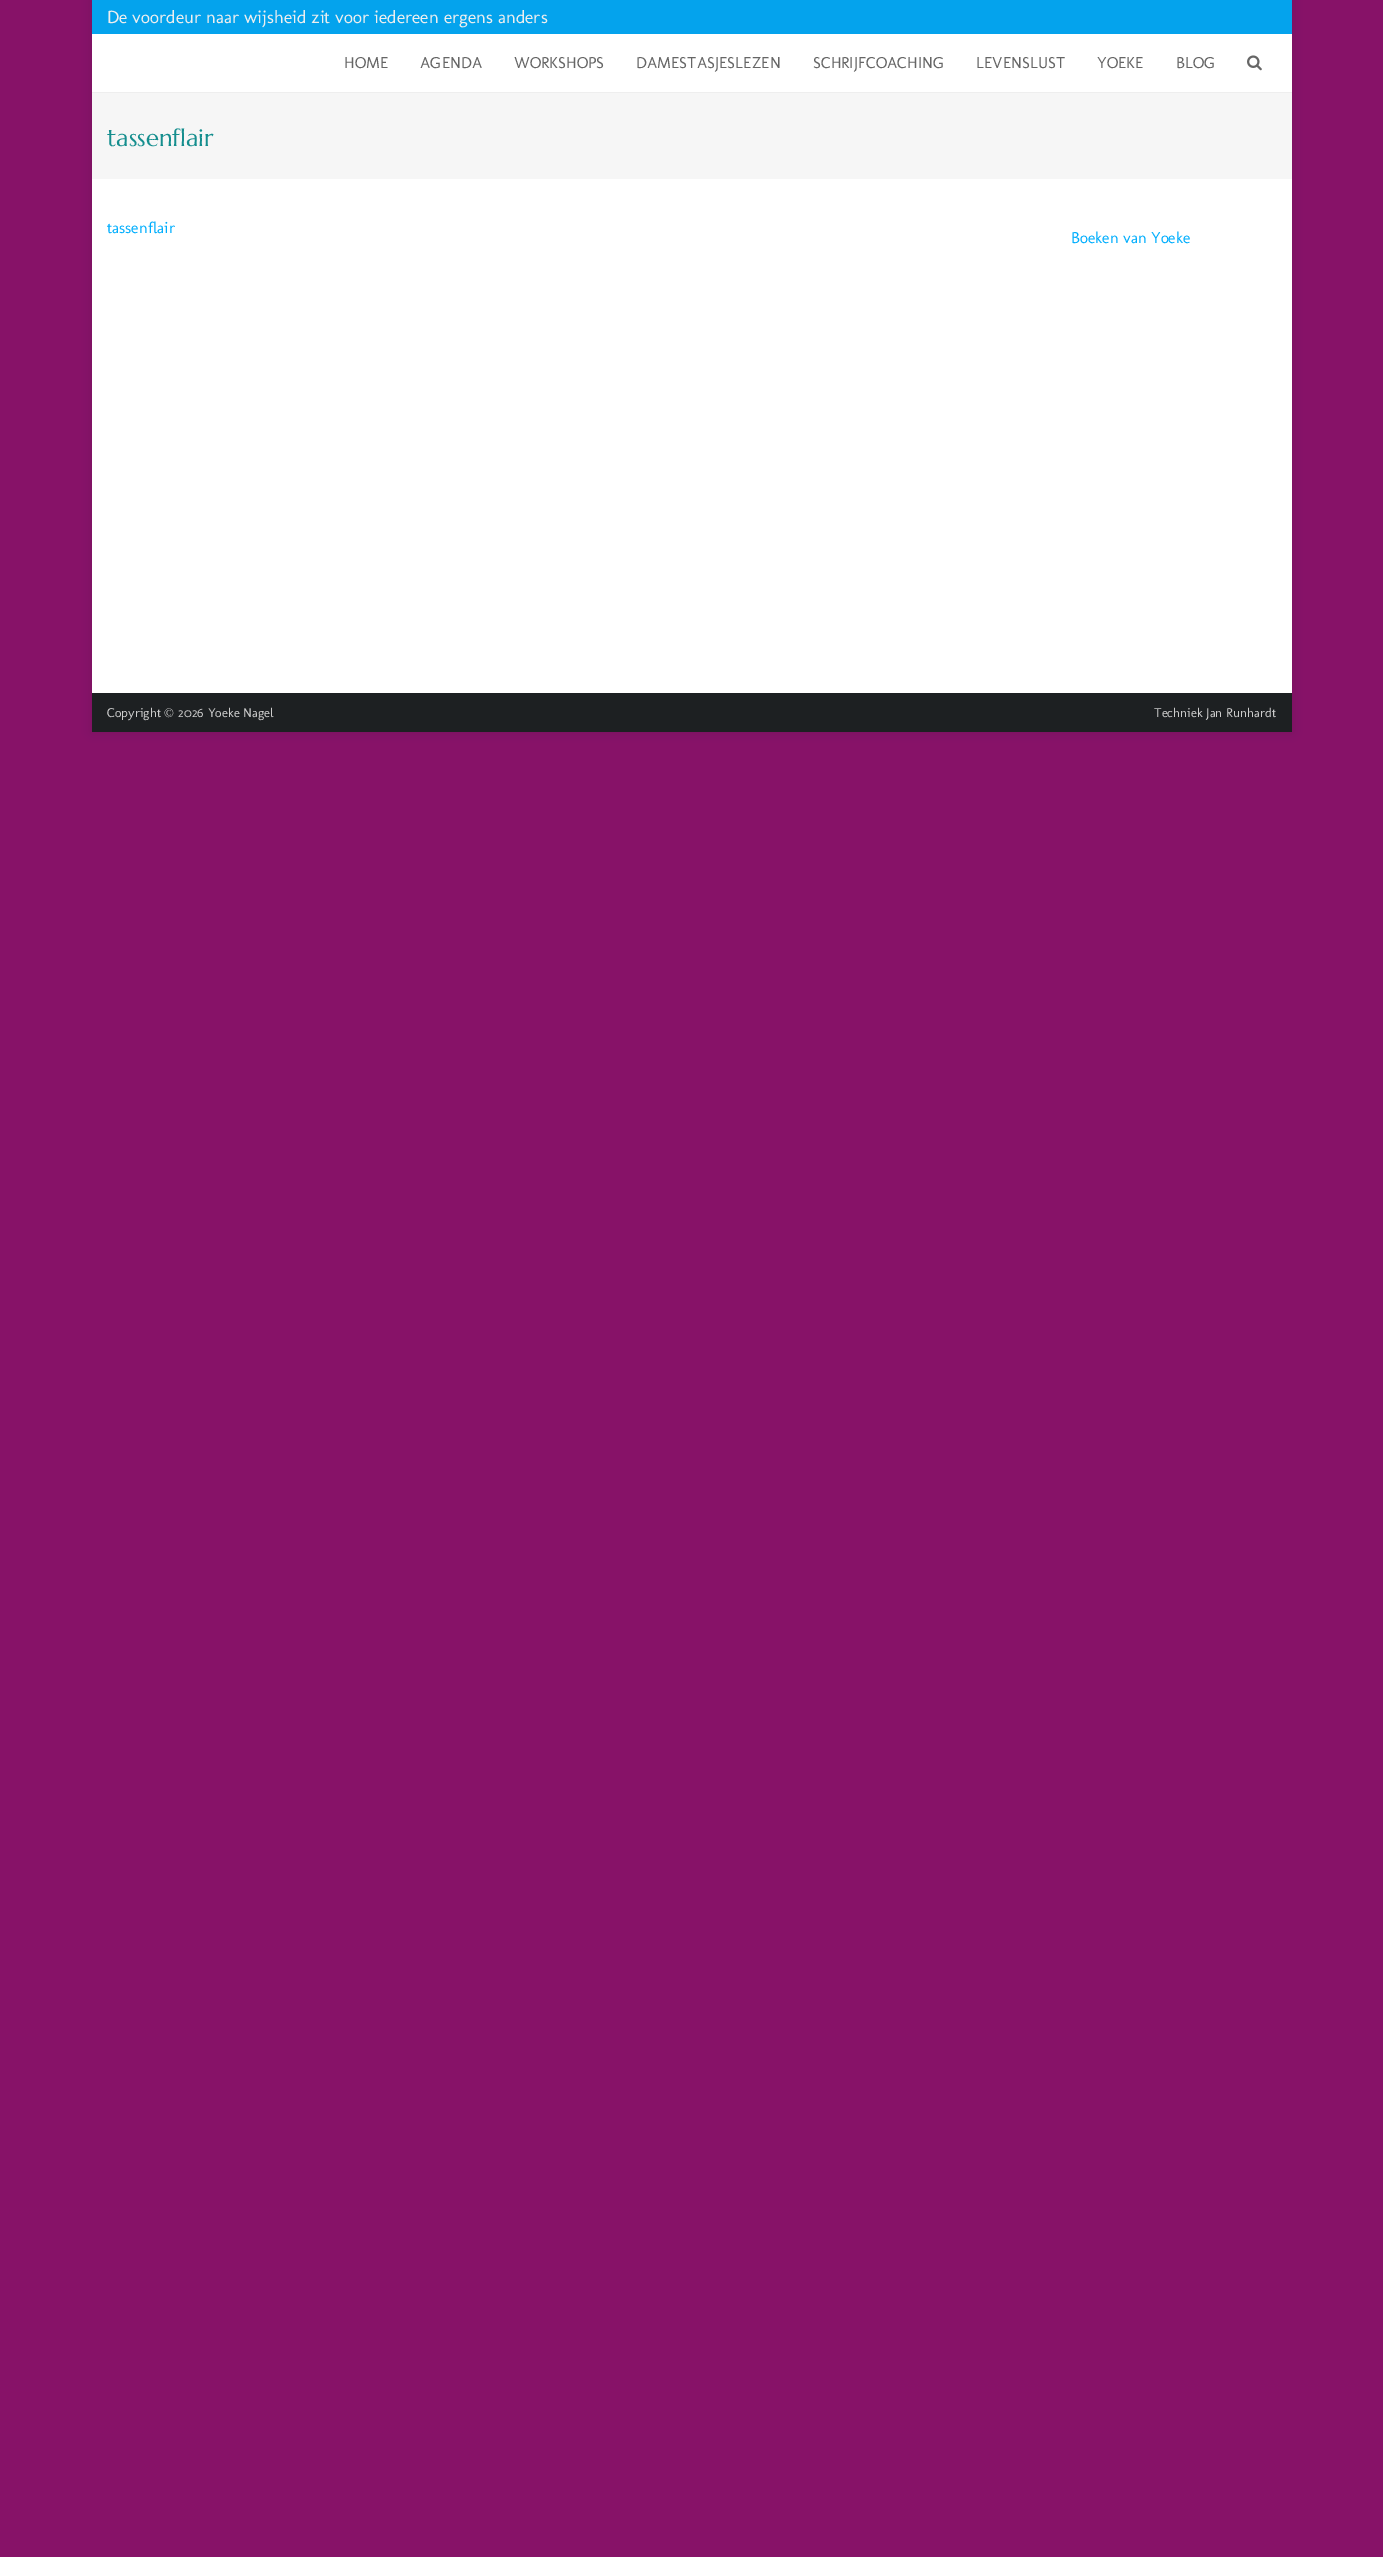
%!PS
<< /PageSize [1383 2557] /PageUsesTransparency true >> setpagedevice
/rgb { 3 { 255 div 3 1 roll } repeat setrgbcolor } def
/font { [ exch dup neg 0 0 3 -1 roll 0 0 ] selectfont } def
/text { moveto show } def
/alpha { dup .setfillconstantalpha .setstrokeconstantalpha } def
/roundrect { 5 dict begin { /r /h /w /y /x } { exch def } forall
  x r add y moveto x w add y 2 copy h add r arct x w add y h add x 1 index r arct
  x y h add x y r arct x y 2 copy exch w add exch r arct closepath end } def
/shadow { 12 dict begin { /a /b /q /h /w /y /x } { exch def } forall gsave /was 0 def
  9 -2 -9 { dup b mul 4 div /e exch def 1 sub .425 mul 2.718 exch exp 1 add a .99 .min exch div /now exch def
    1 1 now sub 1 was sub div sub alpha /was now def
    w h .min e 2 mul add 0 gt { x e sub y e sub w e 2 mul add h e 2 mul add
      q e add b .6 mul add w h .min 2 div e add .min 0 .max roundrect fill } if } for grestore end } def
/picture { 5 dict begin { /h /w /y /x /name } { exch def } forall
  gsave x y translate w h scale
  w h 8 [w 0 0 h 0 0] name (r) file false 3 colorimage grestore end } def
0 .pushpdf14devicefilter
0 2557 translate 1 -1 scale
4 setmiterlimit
135 18 104 rgb
0 0 1383 2557 rectfill
0 0 0 rgb
92 0 1200 732 0 5 0.1 shadow
255 255 255 rgb
92 34 1200 659 rectfill
4 163 237 rgb
92 0 1200 34 rectfill
238 238 238 rgb
92 92 1200 1 rectfill
(img_01.rgb) 1247 55 15 16 picture
246 246 246 rgb
92 93 1200 86 rectfill
29 32 34 rgb
92 693 1200 39 rectfill
/Molengo-Regular 18 font
238 238 238 rgb
(De voordeur naar wijsheid zit voor iedereen ergens anders) 107 23 text
/Molengo-Regular 16 font
102 102 102 rgb
(HOME) 344 68 text
(AGENDA) 420 68 text
(WORKSHOPS) 514 68 text
(DAMESTASJESLEZEN) 636 68 text
(SCHRIJFCOACHING) 813 68 text
(LEVENSLUST) 976 68 text
(YOEKE) 1097 68 text
(BLOG) 1176 68 text
/Marcellus-Regular 24 font
21 142 142 rgb
(tassenflair) 107 146 text
/Molengo-Regular 16 font
1 174 253 rgb
(tassenflair) 107 233 text
(Boeken van Yoeke) 1071 243 text
/Molengo-Regular 13 font
204 204 204 rgb
(Copyright) 107 717 text
/LiberationSerif-Regular 13 font
(©) 164 717 text
/Molengo-Regular 13 font
(2026 Yoeke Nagel) 178 717 text
(Techniek Jan Runhardt) 1154 717 text
.poppdf14devicefilter showpage
